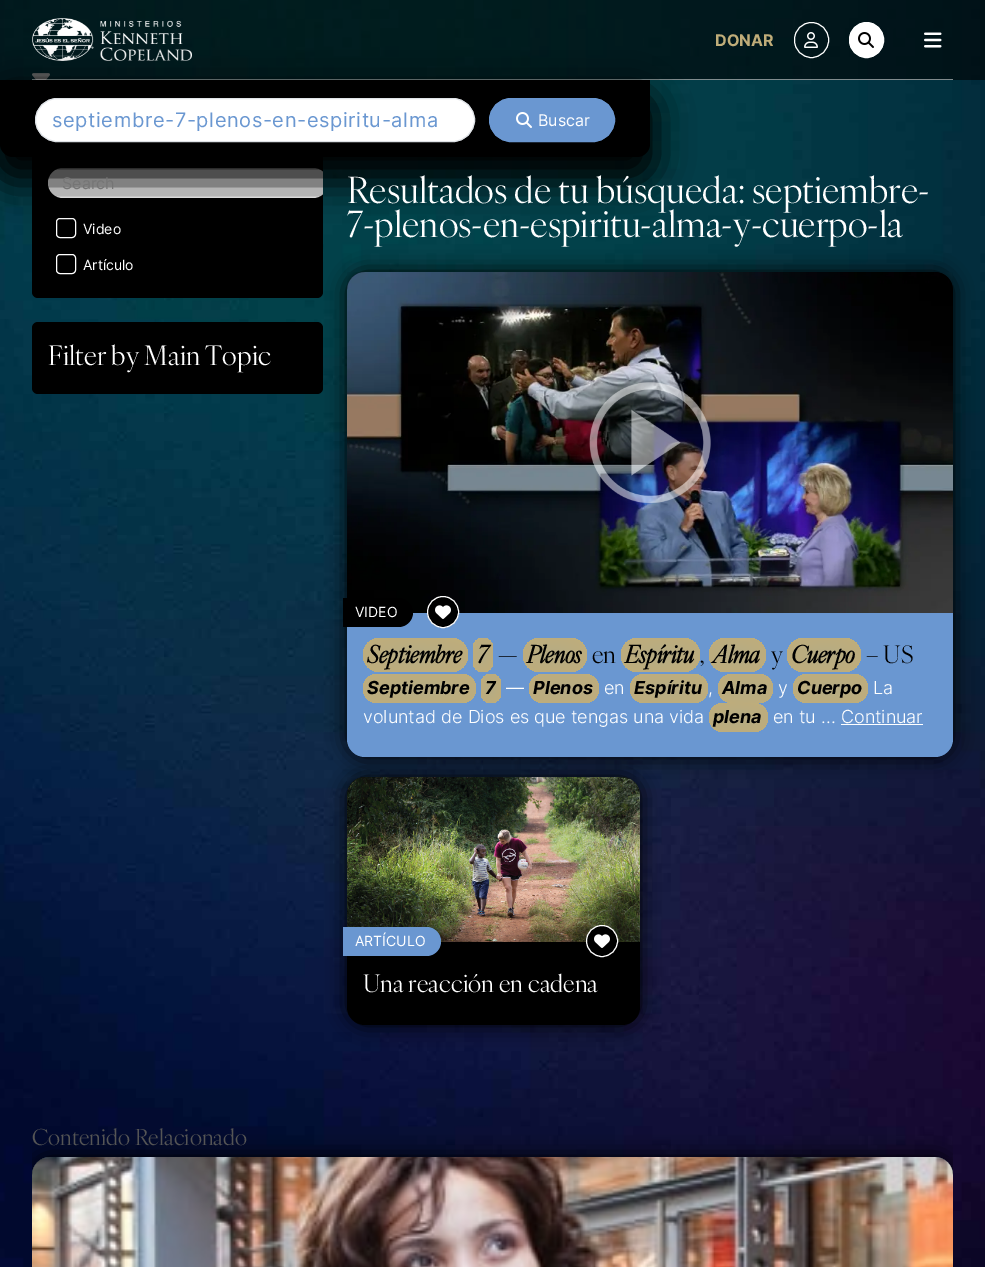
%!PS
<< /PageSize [985 1267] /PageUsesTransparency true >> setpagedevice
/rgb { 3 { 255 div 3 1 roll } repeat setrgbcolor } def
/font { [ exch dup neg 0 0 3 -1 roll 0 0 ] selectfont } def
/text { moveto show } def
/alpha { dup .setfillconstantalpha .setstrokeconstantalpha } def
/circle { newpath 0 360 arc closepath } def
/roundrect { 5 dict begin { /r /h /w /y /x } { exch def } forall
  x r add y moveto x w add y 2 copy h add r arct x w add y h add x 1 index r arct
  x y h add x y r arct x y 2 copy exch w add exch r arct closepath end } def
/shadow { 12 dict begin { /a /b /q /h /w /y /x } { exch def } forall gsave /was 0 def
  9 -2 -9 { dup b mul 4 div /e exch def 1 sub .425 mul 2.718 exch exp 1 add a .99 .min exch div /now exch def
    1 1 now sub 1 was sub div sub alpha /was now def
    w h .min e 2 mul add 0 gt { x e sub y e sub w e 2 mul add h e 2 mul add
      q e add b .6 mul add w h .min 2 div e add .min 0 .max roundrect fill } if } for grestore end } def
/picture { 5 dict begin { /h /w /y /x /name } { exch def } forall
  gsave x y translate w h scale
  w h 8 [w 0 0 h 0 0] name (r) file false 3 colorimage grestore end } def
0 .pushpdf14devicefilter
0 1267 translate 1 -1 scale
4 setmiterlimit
255 255 255 rgb
0 0 985 1267 rectfill
(img_01.rgb) 0 0 985 1267 picture
(img_07.rgb) 32 73 18 7 picture
0.6 alpha
0 0 0 rgb
0 0 985 80 rectfill
0.5 alpha
255 255 255 rgb
32 79 921 1 rectfill
1 alpha
(img_02.rgb) 32 18 160 43 picture
794.5 22.5 34 35 17 roundrect stroke
(img_03.rgb) 804 32 14 16 picture
849.5 22.5 34 35 17 roundrect gsave fill grestore
stroke
(img_04.rgb) 858 32 16 16 picture
(img_05.rgb) 924 32 18 16 picture
0 0 0 rgb
347 272 606 485 18 10 1 shadow
32 107 291 191 6 roundrect fill
gsave
32 71 291 1052 rectclip
255 255 255 rgb
48 168 280 30 15 roundrect fill
grestore
255 255 255 rgb
56.5 218.5 19 19 3.5 roundrect stroke
0 0 0 rgb
-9 90 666 93 21 18 1 shadow
0 80 moveto 650 0 rlineto 0 64 rlineto 0 7 -6 13 -13 13 rcurveto -624 0 rlineto -7 0 -13 -6 -13 -13 rcurveto closepath fill
255 255 255 rgb
35.5 98.5 439 43 21.5 roundrect gsave fill grestore
222 226 230 rgb
stroke
106 151 209 rgb
489.5 98.5 125 43 21.5 roundrect gsave fill grestore
stroke
(img_06.rgb) 516 112 16 16 picture
255 255 255 rgb
56.5 254.5 19 19 3.5 roundrect stroke
0 0 0 rgb
32 322 291 72 6 roundrect fill
(img_08.rgb) 347 272 606 341 picture
(img_09.rgb) 589 382 122 121 picture
347 777 293 248 18 10 1 shadow
106 151 209 rgb
347 613 moveto 606 0 rlineto 0 126 rlineto 0 10 -8 18 -18 18 rcurveto -570 0 rlineto -10 0 -18 -8 -18 -18 rcurveto closepath fill
0 0 0 rgb
343 598 moveto 55.5 0 rlineto 8 0 14.5 6.5 14.5 14.5 rcurveto 0 8 -6.5 14.5 -14.5 14.5 rcurveto -55.5 0 rlineto closepath fill
443 612 15.5 circle gsave fill grestore
255 255 255 rgb
stroke
(img_10.rgb) 435 605 16 14 picture
gsave 363 638 105 34 17 roundrect clip newpath 416 655 translate 74 24 scale
<< /ShadingType 3 /ColorSpace /DeviceRGB /Coords [0 0 0 0 0 1] /Extend [true true] /Function << /FunctionType 3 /Domain [0 1] /Functions [<< /FunctionType 2 /Domain [0 1] /C0 [0.753 0.682 0.478] /C1 [0.714 0.671 0.518] /N 1 >> << /FunctionType 2 /Domain [0 1] /C0 [0.714 0.671 0.518] /C1 [0.753 0.682 0.478] /N 1 >>] /Bounds [0.04] /Encode [0 1 0 1] >> >> shfill grestore
gsave 473 638 20 34 10 roundrect clip newpath 483 655 translate 14 24 scale
<< /ShadingType 3 /ColorSpace /DeviceRGB /Coords [0 0 0 0 0 1] /Extend [true true] /Function << /FunctionType 3 /Domain [0 1] /Functions [<< /FunctionType 2 /Domain [0 1] /C0 [0.753 0.682 0.478] /C1 [0.714 0.671 0.518] /N 1 >> << /FunctionType 2 /Domain [0 1] /C0 [0.714 0.671 0.518] /C1 [0.753 0.682 0.478] /N 1 >>] /Bounds [0.04] /Encode [0 1 0 1] >> >> shfill grestore
gsave 523 638 64 34 17 roundrect clip newpath 555 655 translate 45 24 scale
<< /ShadingType 3 /ColorSpace /DeviceRGB /Coords [0 0 0 0 0 1] /Extend [true true] /Function << /FunctionType 3 /Domain [0 1] /Functions [<< /FunctionType 2 /Domain [0 1] /C0 [0.753 0.682 0.478] /C1 [0.714 0.671 0.518] /N 1 >> << /FunctionType 2 /Domain [0 1] /C0 [0.714 0.671 0.518] /C1 [0.753 0.682 0.478] /N 1 >>] /Bounds [0.04] /Encode [0 1 0 1] >> >> shfill grestore
gsave 621 638 79 34 17 roundrect clip newpath 661 655 translate 56 24 scale
<< /ShadingType 3 /ColorSpace /DeviceRGB /Coords [0 0 0 0 0 1] /Extend [true true] /Function << /FunctionType 3 /Domain [0 1] /Functions [<< /FunctionType 2 /Domain [0 1] /C0 [0.753 0.682 0.478] /C1 [0.714 0.671 0.518] /N 1 >> << /FunctionType 2 /Domain [0 1] /C0 [0.714 0.671 0.518] /C1 [0.753 0.682 0.478] /N 1 >>] /Bounds [0.04] /Encode [0 1 0 1] >> >> shfill grestore
gsave 709 638 57 34 17 roundrect clip newpath 738 655 translate 40 24 scale
<< /ShadingType 3 /ColorSpace /DeviceRGB /Coords [0 0 0 0 0 1] /Extend [true true] /Function << /FunctionType 3 /Domain [0 1] /Functions [<< /FunctionType 2 /Domain [0 1] /C0 [0.753 0.682 0.478] /C1 [0.714 0.671 0.518] /N 1 >> << /FunctionType 2 /Domain [0 1] /C0 [0.714 0.671 0.518] /C1 [0.753 0.682 0.478] /N 1 >>] /Bounds [0.04] /Encode [0 1 0 1] >> >> shfill grestore
gsave 787 638 74 34 17 roundrect clip newpath 824 655 translate 52 24 scale
<< /ShadingType 3 /ColorSpace /DeviceRGB /Coords [0 0 0 0 0 1] /Extend [true true] /Function << /FunctionType 3 /Domain [0 1] /Functions [<< /FunctionType 2 /Domain [0 1] /C0 [0.753 0.682 0.478] /C1 [0.714 0.671 0.518] /N 1 >> << /FunctionType 2 /Domain [0 1] /C0 [0.714 0.671 0.518] /C1 [0.753 0.682 0.478] /N 1 >>] /Bounds [0.04] /Encode [0 1 0 1] >> >> shfill grestore
gsave 363 674 113 29 14.5 roundrect clip newpath 420 689 translate 80 21 scale
<< /ShadingType 3 /ColorSpace /DeviceRGB /Coords [0 0 0 0 0 1] /Extend [true true] /Function << /FunctionType 3 /Domain [0 1] /Functions [<< /FunctionType 2 /Domain [0 1] /C0 [0.753 0.682 0.478] /C1 [0.714 0.671 0.518] /N 1 >> << /FunctionType 2 /Domain [0 1] /C0 [0.714 0.671 0.518] /C1 [0.753 0.682 0.478] /N 1 >>] /Bounds [0.04] /Encode [0 1 0 1] >> >> shfill grestore
gsave 481 674 20 29 10 roundrect clip newpath 491 689 translate 14 21 scale
<< /ShadingType 3 /ColorSpace /DeviceRGB /Coords [0 0 0 0 0 1] /Extend [true true] /Function << /FunctionType 3 /Domain [0 1] /Functions [<< /FunctionType 2 /Domain [0 1] /C0 [0.753 0.682 0.478] /C1 [0.714 0.671 0.518] /N 1 >> << /FunctionType 2 /Domain [0 1] /C0 [0.714 0.671 0.518] /C1 [0.753 0.682 0.478] /N 1 >>] /Bounds [0.04] /Encode [0 1 0 1] >> >> shfill grestore
gsave 529 674 70 29 14.5 roundrect clip newpath 564 689 translate 49 21 scale
<< /ShadingType 3 /ColorSpace /DeviceRGB /Coords [0 0 0 0 0 1] /Extend [true true] /Function << /FunctionType 3 /Domain [0 1] /Functions [<< /FunctionType 2 /Domain [0 1] /C0 [0.753 0.682 0.478] /C1 [0.714 0.671 0.518] /N 1 >> << /FunctionType 2 /Domain [0 1] /C0 [0.714 0.671 0.518] /C1 [0.753 0.682 0.478] /N 1 >>] /Bounds [0.04] /Encode [0 1 0 1] >> >> shfill grestore
gsave 630 674 78 29 14.5 roundrect clip newpath 669 689 translate 55 21 scale
<< /ShadingType 3 /ColorSpace /DeviceRGB /Coords [0 0 0 0 0 1] /Extend [true true] /Function << /FunctionType 3 /Domain [0 1] /Functions [<< /FunctionType 2 /Domain [0 1] /C0 [0.753 0.682 0.478] /C1 [0.714 0.671 0.518] /N 1 >> << /FunctionType 2 /Domain [0 1] /C0 [0.714 0.671 0.518] /C1 [0.753 0.682 0.478] /N 1 >>] /Bounds [0.04] /Encode [0 1 0 1] >> >> shfill grestore
gsave 718 674 55 29 14.5 roundrect clip newpath 746 689 translate 39 21 scale
<< /ShadingType 3 /ColorSpace /DeviceRGB /Coords [0 0 0 0 0 1] /Extend [true true] /Function << /FunctionType 3 /Domain [0 1] /Functions [<< /FunctionType 2 /Domain [0 1] /C0 [0.753 0.682 0.478] /C1 [0.714 0.671 0.518] /N 1 >> << /FunctionType 2 /Domain [0 1] /C0 [0.714 0.671 0.518] /C1 [0.753 0.682 0.478] /N 1 >>] /Bounds [0.04] /Encode [0 1 0 1] >> >> shfill grestore
gsave 793 674 75 29 14.5 roundrect clip newpath 831 689 translate 53 21 scale
<< /ShadingType 3 /ColorSpace /DeviceRGB /Coords [0 0 0 0 0 1] /Extend [true true] /Function << /FunctionType 3 /Domain [0 1] /Functions [<< /FunctionType 2 /Domain [0 1] /C0 [0.753 0.682 0.478] /C1 [0.714 0.671 0.518] /N 1 >> << /FunctionType 2 /Domain [0 1] /C0 [0.714 0.671 0.518] /C1 [0.753 0.682 0.478] /N 1 >>] /Bounds [0.04] /Encode [0 1 0 1] >> >> shfill grestore
gsave 709 703 59 29 14.5 roundrect clip newpath 739 718 translate 42 21 scale
<< /ShadingType 3 /ColorSpace /DeviceRGB /Coords [0 0 0 0 0 1] /Extend [true true] /Function << /FunctionType 3 /Domain [0 1] /Functions [<< /FunctionType 2 /Domain [0 1] /C0 [0.753 0.682 0.478] /C1 [0.714 0.671 0.518] /N 1 >> << /FunctionType 2 /Domain [0 1] /C0 [0.714 0.671 0.518] /C1 [0.753 0.682 0.478] /N 1 >>] /Bounds [0.04] /Encode [0 1 0 1] >> >> shfill grestore
841 724 82 1 rectfill
0 0 0 rgb
347 777 293 248 18 roundrect fill
(img_11.rgb) 347 777 293 165 picture
106 151 209 rgb
343 927 moveto 83.5 0 rlineto 8 0 14.5 6.5 14.5 14.5 rcurveto 0 8 -6.5 14.5 -14.5 14.5 rcurveto -83.5 0 rlineto closepath fill
0 0 0 rgb
602 941 15.5 circle gsave fill grestore
255 255 255 rgb
stroke
(img_10.rgb) 594 934 16 14 picture
gsave
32 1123 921 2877 rectclip
0 0 0 rgb
32 1157 921 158 18 10 1 shadow
grestore
(img_12.rgb) 32 1157 921 110 picture
/Inter-Bold 16 font
192 173 121 rgb
(DONAR) 715 46 text
/Inter-Regular 20 font
106 151 209 rgb
52 127 moveto 0.6 0 (septiembre-7-plenos-en-espiritu-alma) ashow
/Inter-Regular 16 font
255 255 255 rgb
(Buscar) 538 126 text
117 117 117 rgb
(Search) 62 189 text
/Inter-Regular 14 font
255 255 255 rgb
(Video) 83 234 text
(Artículo) 83 270 text
/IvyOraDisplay-Regular 26.75 font
(Filter by Main Topic) 48 365 text
/IvyOraDisplay-Regular 36 font
(Resultados de tu búsqueda: septiembre-) 347 203 text
(7-plenos-en-espiritu-alma-y-cuerpo-la) 347 237 text
/Inter-Regular 14 font
(VIDEO) 355 617 text
/IvyOraDisplay-BoldItalic 24 font
0 0 0 rgb
(Septiembre) 367 663 text
(7) 477 663 text
/IvyOraDisplay-Regular 24 font
(—) 498 663 text
/IvyOraDisplay-BoldItalic 24 font
(Plenos) 527 663 text
/IvyOraDisplay-Regular 24 font
(en) 592 663 text
/IvyOraDisplay-BoldItalic 24 font
(Espíritu) 625 663 text
(Alma) 713 663 text
/IvyOraDisplay-Regular 24 font
(y) 771 663 text
/IvyOraDisplay-BoldItalic 24 font
(Cuerpo) 791 663 text
/IvyOraDisplay-Regular 24 font
(– US) 866 663 text
(,) 700 663 text
/Inter-BoldItalic 18 font
(Septiembre) 367 694 text
(7) 485 694 text
/Inter-Light 18 font
255 255 255 rgb
(—) 506 694 text
/Inter-BoldItalic 18 font
0 0 0 rgb
(Plenos) 533 694 text
/Inter-Light 18 font
255 255 255 rgb
(en) 604 694 text
/Inter-BoldItalic 18 font
0 0 0 rgb
(Espíritu) 634 694 text
(Alma) 722 694 text
/Inter-Light 18 font
255 255 255 rgb
(y) 778 694 text
/Inter-BoldItalic 18 font
0 0 0 rgb
(Cuerpo) 797 694 text
/Inter-Light 18 font
255 255 255 rgb
(La) 873 694 text
(,) 708 694 text
(voluntad de Dios es que tengas una vida) 363 723 text
/Inter-BoldItalic 18 font
0 0 0 rgb
(plena) 713 723 text
/Inter-Light 18 font
255 255 255 rgb
(en tu … Continuar) 773 723 text
/Inter-Regular 14 font
(ARTÍCULO) 355 946 text
/IvyOraDisplay-Regular 24 font
(Una reacción en cadena) 363 992 text
/IvyOraDisplay-Regular 22 font
85 85 85 rgb
(Contenido Relacionado) 32 1145 text
.poppdf14devicefilter showpage
